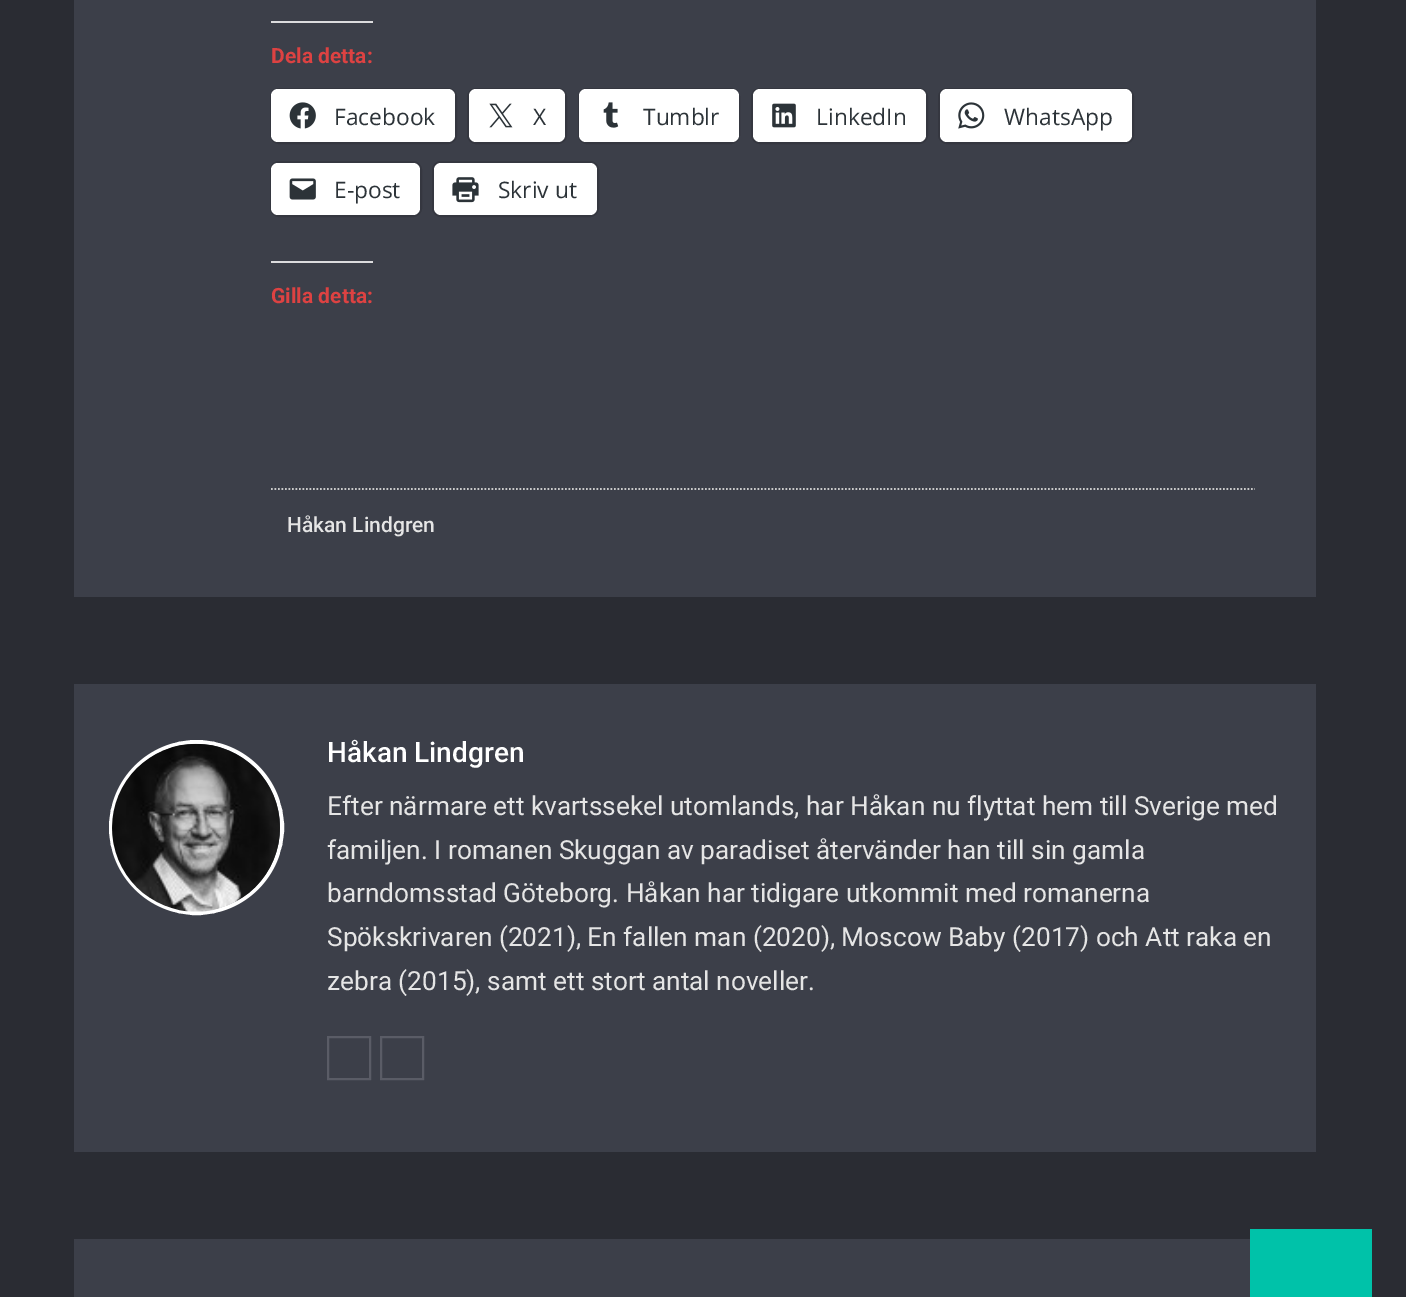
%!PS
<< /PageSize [1406 1297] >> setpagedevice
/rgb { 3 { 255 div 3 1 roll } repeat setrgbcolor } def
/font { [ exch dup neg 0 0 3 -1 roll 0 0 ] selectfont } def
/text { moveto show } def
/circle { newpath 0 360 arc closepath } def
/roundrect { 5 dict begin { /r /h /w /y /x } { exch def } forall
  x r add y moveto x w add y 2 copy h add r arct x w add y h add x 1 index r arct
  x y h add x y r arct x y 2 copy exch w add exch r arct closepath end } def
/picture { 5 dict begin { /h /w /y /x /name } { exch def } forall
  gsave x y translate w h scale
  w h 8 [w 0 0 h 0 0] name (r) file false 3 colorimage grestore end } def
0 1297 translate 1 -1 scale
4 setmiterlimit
42 44 51 rgb
0 0 1406 1297 rectfill
60 63 73 rgb
74 0 1242 597 rectfill
220 220 222 rgb
271 21 102 2 rectfill
53 55 64 rgb
2 setlinewidth
271 89 185 54 8 roundrect stroke
255 255 255 rgb
271 89 184 53 7 roundrect fill
(img_01.rgb) 289 102 27 27 picture
53 55 64 rgb
468 89 98 54 8 roundrect stroke
255 255 255 rgb
469 89 96 53 7 roundrect fill
(img_02.rgb) 489 103 24 25 picture
53 55 64 rgb
579 89 160 54 8 roundrect stroke
255 255 255 rgb
579 89 160 53 7 roundrect fill
(img_03.rgb) 603 102 16 26 picture
53 55 64 rgb
752 89 175 54 8 roundrect stroke
255 255 255 rgb
753 89 173 53 7 roundrect fill
(img_04.rgb) 772 103 24 25 picture
53 55 64 rgb
939 89 194 54 8 roundrect stroke
255 255 255 rgb
940 89 192 53 7 roundrect fill
(img_05.rgb) 958 102 27 27 picture
53 55 64 rgb
271 162 150 54 8 roundrect stroke
255 255 255 rgb
271 163 149 52 7 roundrect fill
(img_06.rgb) 289 178 27 22 picture
53 55 64 rgb
433 162 165 54 8 roundrect stroke
255 255 255 rgb
434 163 163 52 7 roundrect fill
(img_07.rgb) 452 177 27 26 picture
220 220 222 rgb
271 261 102 2 rectfill
202 202 202 rgb
1.8 setlinewidth
[1.75 1.75] 0 setdash
271 489 moveto 984 0 rlineto stroke
60 63 73 rgb
74 684 1242 468 rectfill
255 255 255 rgb
4 setlinewidth
[] 0 setdash
196.5 827.5 85.5 circle stroke
(img_08.rgb) 112 743 168 169 picture
90 92 102 rgb
2 setlinewidth
328 1037 42 42 rectstroke
381 1037 42 42 rectstroke
60 63 73 rgb
74 1239 1176 58 rectfill
0 194 169 rgb
1250 1229 122 68 rectfill
/Roboto-Bold 21 font
221 66 66 rgb
(Dela detta:) 271 63 text
/OpenSans-Regular 22.75 font
44 51 56 rgb
(Facebook) 334 125 text
(X) 533 125 text
(Tumblr) 643 125 text
(LinkedIn) 816 125 text
(WhatsApp) 1004 125 text
(E-post) 334 198 text
(Skriv ut) 498 198 text
/Roboto-Bold 21 font
221 66 66 rgb
(Gilla detta:) 271 303 text
/Roboto-Medium 21 font
229 229 229 rgb
(Håkan Lindgren) 287 532 text
/Roboto-Medium 28 font
255 255 255 rgb
(Håkan Lindgren) 327 762 text
/Roboto-Regular 26.25 font
229 229 229 rgb
(Efter närmare ett kvartssekel utomlands, har Håkan nu flyttat hem till Sverige med) 327 815 text
(familjen. I romanen Skuggan av paradiset återvänder han till sin gamla) 327 859 text
(barndomsstad Göteborg. Håkan har tidigare utkommit med romanerna) 327 902 text
(Spökskrivaren \(2021\), En fallen man \(2020\), Moscow Baby \(2017\) och Att raka en) 327 946 text
(zebra \(2015\), samt ett stort antal noveller.) 327 990 text
showpage
